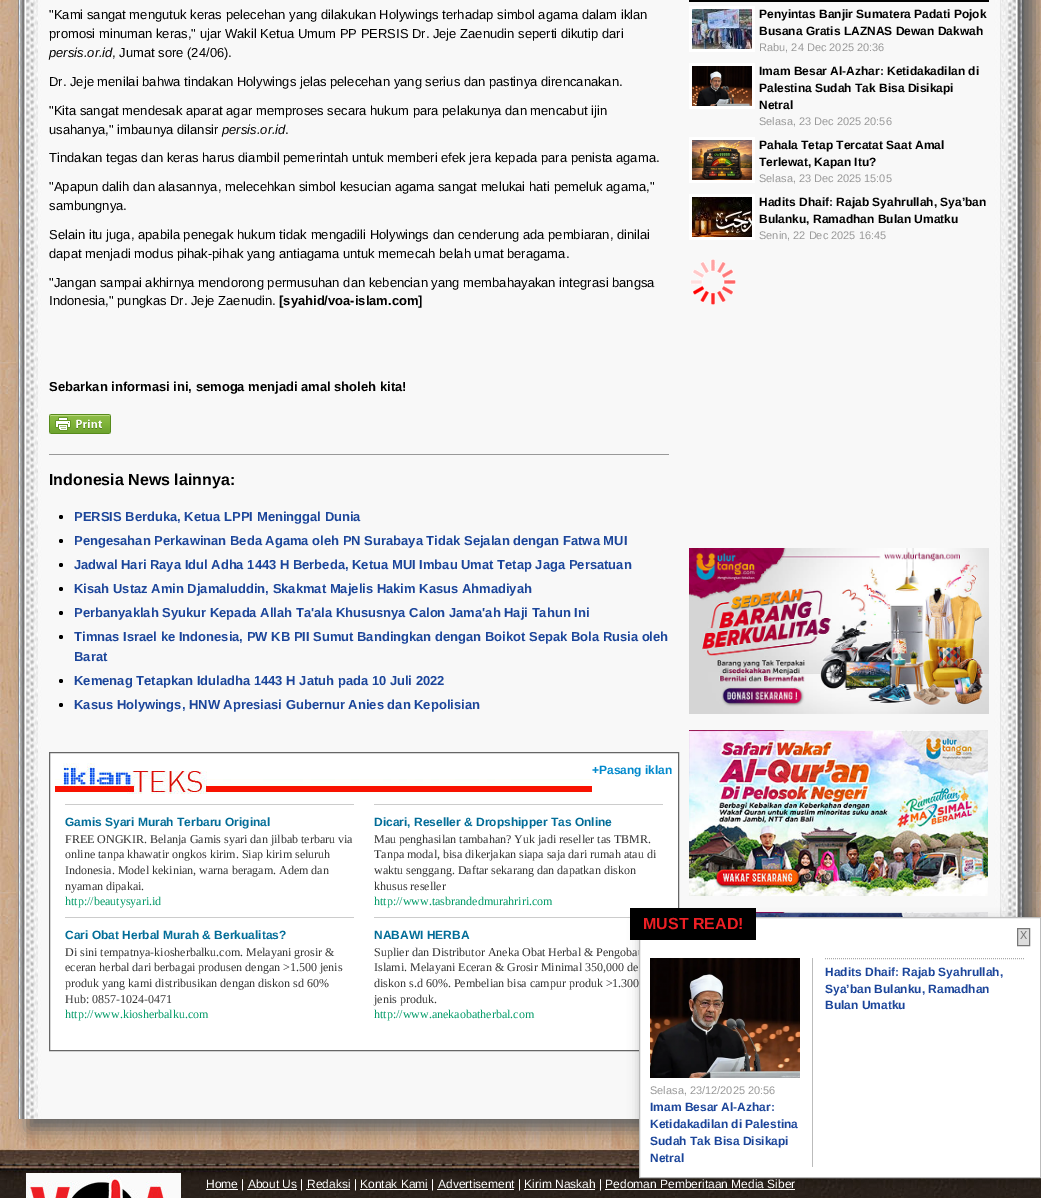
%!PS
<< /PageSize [1041 1198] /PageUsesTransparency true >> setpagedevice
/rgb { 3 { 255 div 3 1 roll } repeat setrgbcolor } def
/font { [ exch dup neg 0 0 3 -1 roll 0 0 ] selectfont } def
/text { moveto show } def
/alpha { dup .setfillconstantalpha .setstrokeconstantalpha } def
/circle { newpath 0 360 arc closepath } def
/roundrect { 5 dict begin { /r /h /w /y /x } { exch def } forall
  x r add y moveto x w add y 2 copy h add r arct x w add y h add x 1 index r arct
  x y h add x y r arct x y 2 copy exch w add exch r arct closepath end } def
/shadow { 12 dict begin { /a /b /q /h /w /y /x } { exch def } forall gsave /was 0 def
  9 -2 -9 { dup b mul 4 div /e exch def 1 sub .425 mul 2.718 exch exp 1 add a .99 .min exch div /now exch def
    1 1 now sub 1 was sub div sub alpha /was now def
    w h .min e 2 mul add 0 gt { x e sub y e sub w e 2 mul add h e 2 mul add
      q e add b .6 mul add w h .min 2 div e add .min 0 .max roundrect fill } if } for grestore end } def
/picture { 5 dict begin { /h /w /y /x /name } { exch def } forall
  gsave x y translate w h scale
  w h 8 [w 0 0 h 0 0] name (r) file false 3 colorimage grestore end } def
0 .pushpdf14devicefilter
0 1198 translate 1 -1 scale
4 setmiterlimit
255 255 255 rgb
0 0 1041 1198 rectfill
(img_01.rgb) 0 0 1041 1149 picture
(img_02.rgb) 18 0 1006 1119 picture
gsave
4 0 moveto 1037 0 rlineto 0 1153 rlineto -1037 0 rlineto closepath 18 -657 moveto 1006 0 rlineto 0 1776 rlineto -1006 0 rlineto closepath eoclip newpath
102 102 102 rgb
28 -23 1006 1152 0 7.5 1 shadow
grestore
(img_03.rgb) 49 414 62 20 picture
153 153 153 rgb
49 454 620 1 rectfill
0 0 0 rgb
61 517 2 circle fill
61 541 2 circle fill
61 565 2 circle fill
61 589 2 circle fill
61 613 2 circle fill
61 637 2 circle fill
61 681 2 circle fill
61 705 2 circle fill
255 255 255 rgb
49.5 752.5 moveto 629 0 rlineto 0 298 rlineto -629 0 rlineto closepath gsave fill grestore
102 102 102 rgb
stroke
(img_04.rgb) 55 763 537 31 picture
204 204 204 rgb
65 804 289 1 rectfill
65 917 289 1 rectfill
374 804 289 1 rectfill
374 917 256 1 rectfill
0 0 0 rgb
689 0 300 2 rectfill
255 255 255 rgb
689 6 66 46 rectfill
(img_05.rgb) 692 9 60 40 picture
689 63 66 46 rectfill
(img_06.rgb) 692 66 60 40 picture
689 137 66 46 rectfill
(img_07.rgb) 692 140 60 40 picture
689 194 66 46 rectfill
(img_08.rgb) 692 197 60 40 picture
(img_09.rgb) 690 259 46 46 picture
(img_10.rgb) 689 548 300 166 picture
(img_11.rgb) 689 730 299 166 picture
(img_12.rgb) 756 912 232 5 picture
(img_14.rgb) 0 1149 1041 49 picture
605 1189 190 1 rectfill
0 0 0 rgb
639 920 402 261 0 5.5 0.2 shadow
(img_15.rgb) 26 1173 155 25 picture
255 255 255 rgb
206 1189 32 1 rectfill
247 1189 50 1 rectfill
306 1189 44 1 rectfill
360 1189 68 1 rectfill
437 1189 77 1 rectfill
524 1189 71 1 rectfill
/LiberationSans-Regular 13 font
0 0 0 rgb
("Kami sangat mengutuk keras pelecehan yang dilakukan Holywings terhadap simbol agama dalam iklan) 49 19 text
(promosi minuman keras," ujar Wakil Ketua Umum PP PERSIS Dr. Jeje Zaenudin seperti dikutip dari) 49 38 text
/LiberationSans-Italic 13 font
(persis.or.id) 49 57 text
/LiberationSans-Regular 13 font
(, Jumat sore \(24/06\).) 112 57 text
(Dr. Jeje menilai bahwa tindakan Holywings jelas pelecehan yang serius dan pastinya direncanakan.) 49 86 text
("Kita sangat mendesak aparat agar memproses secara hukum para pelakunya dan mencabut ijin) 49 115 text
(usahanya," imbaunya dilansir) 49 134 text
/LiberationSans-Italic 13 font
(persis.or.id) 222 134 text
/LiberationSans-Regular 13 font
(.) 285 134 text
(Tindakan tegas dan keras harus diambil pemerintah untuk memberi efek jera kepada para penista agama.) 49 162 text
("Apapun dalih dan alasannya, melecehkan simbol kesucian agama sangat melukai hati pemeluk agama,") 49 191 text
(sambungnya.) 49 210 text
(Selain itu juga, apabila penegak hukum tidak mengadili Holywings dan cenderung ada pembiaran, dinilai) 49 239 text
(dapat menjadi modus pihak-pihak yang antiagama untuk memecah belah umat beragama.) 49 258 text
("Jangan sampai akhirnya mendorong permusuhan dan kebencian yang membahayakan integrasi bangsa) 49 287 text
(Indonesia," pungkas Dr. Jeje Zaenudin.) 49 305 text
/LiberationSans-Bold 13 font
([syahid/voa-islam.com]) 279 305 text
(Sebarkan informasi ini, semoga menjadi amal sholeh kita!) 49 391 text
/LiberationSans-Bold 16 font
(Indonesia News lainnya:) 49 485 text
/LiberationSans-Bold 13 font
27 69 154 rgb
(PERSIS Berduka, Ketua LPPI Meninggal Dunia) 74 521 text
(Pengesahan Perkawinan Beda Agama oleh PN Surabaya Tidak Sejalan dengan Fatwa MUI) 74 545 text
(Jadwal Hari Raya Idul Adha 1443 H Berbeda, Ketua MUI Imbau Umat Tetap Jaga Persatuan) 74 569 text
(Kisah Ustaz Amin Djamaluddin, Skakmat Majelis Hakim Kasus Ahmadiyah) 74 593 text
(Perbanyaklah Syukur Kepada Allah Ta'ala Khususnya Calon Jama'ah Haji Tahun Ini) 74 617 text
(Timnas Israel ke Indonesia, PW KB PII Sumut Bandingkan dengan Boikot Sepak Bola Rusia oleh) 74 641 text
(Barat) 74 661 text
(Kemenag Tetapkan Iduladha 1443 H Jatuh pada 10 Juli 2022) 74 685 text
(Kasus Holywings, HNW Apresiasi Gubernur Anies dan Kepolisian) 74 709 text
/LiberationSans-Bold 12 font
0 136 204 rgb
(+Pasang iklan) 592 774 text
2 109 152 rgb
(Gamis Syari Murah Terbaru Original) 65 826 text
/LiberationSerif-Regular 12 font
51 51 51 rgb
(FREE ONGKIR. Belanja Gamis syari dan jilbab terbaru via) 65 843 text
(online tanpa khawatir ongkos kirim. Siap kirim seluruh) 65 858 text
(Indonesia. Model kekinian, warna beragam. Adem dan) 65 874 text
(nyaman dipakai.) 65 890 text
0 153 102 rgb
(http://beautysyari.id) 65 905 text
/LiberationSans-Bold 12 font
2 109 152 rgb
(Cari Obat Herbal Murah & Berkualitas?) 65 939 text
/LiberationSerif-Regular 12 font
51 51 51 rgb
(Di sini tempatnya-kiosherbalku.com. Melayani grosir &) 65 956 text
(eceran herbal dari berbagai produsen dengan >1.500 jenis) 65 971 text
(produk yang kami distribusikan dengan diskon sd 60%) 65 987 text
(Hub: 0857-1024-0471) 65 1003 text
0 153 102 rgb
(http://www.kiosherbalku.com) 65 1018 text
/LiberationSans-Bold 12 font
2 109 152 rgb
(Dicari, Reseller & Dropshipper Tas Online) 374 826 text
/LiberationSerif-Regular 12 font
51 51 51 rgb
(Mau penghasilan tambahan? Yuk jadi reseller tas TBMR.) 374 843 text
(Tanpa modal, bisa dikerjakan siapa saja dari rumah atau di) 374 858 text
(waktu senggang. Daftar sekarang dan dapatkan diskon) 374 874 text
(khusus reseller) 374 890 text
0 153 102 rgb
(http://www.tasbrandedmurahriri.com) 374 905 text
/LiberationSans-Bold 12 font
2 109 152 rgb
(NABAWI HERBA) 374 939 text
/LiberationSerif-Regular 12 font
51 51 51 rgb
(Suplier dan Distributor Aneka Obat Herbal & Pengobat) 374 956 text
(Islami. Melayani Eceran & Grosir Minimal 350,000 de) 374 971 text
(diskon s.d 60%. Pembelian bisa campur produk >1.300) 374 987 text
(jenis produk.) 374 1003 text
0 153 102 rgb
(http://www.anekaobatherbal.com) 374 1018 text
/LiberationSans-Bold 12 font
0 0 0 rgb
(Penyintas Banjir Sumatera Padati Pojok) 759 18 text
(Busana Gratis LAZNAS Dewan Dakwah) 759 35 text
/LiberationSans-Regular 11 font
153 153 153 rgb
(Rabu, 24 Dec 2025 20:36) 759 51 text
/LiberationSans-Bold 12 font
0 0 0 rgb
(Imam Besar Al-Azhar: Ketidakadilan di) 759 75 text
(Palestina Sudah Tak Bisa Disikapi) 759 92 text
(Netral) 759 109 text
/LiberationSans-Regular 11 font
153 153 153 rgb
(Selasa, 23 Dec 2025 20:56) 759 125 text
/LiberationSans-Bold 12 font
0 0 0 rgb
(Pahala Tetap Tercatat Saat Amal) 759 149 text
(Terlewat, Kapan Itu?) 759 166 text
/LiberationSans-Regular 11 font
153 153 153 rgb
(Selasa, 23 Dec 2025 15:05) 759 182 text
/LiberationSans-Bold 12 font
0 0 0 rgb
(Hadits Dhaif: Rajab Syahrullah, Sya’ban) 759 206 text
(Bulanku, Ramadhan Bulan Umatku) 759 223 text
/LiberationSans-Regular 11 font
153 153 153 rgb
(Senin, 22 Dec 2025 16:45) 759 239 text
255 255 255 rgb
639.5 917.5 moveto 401 0 rlineto 0 260 rlineto -401 0 rlineto closepath gsave fill grestore
187 187 187 rgb
stroke
0 0 0 rgb
630 908 126 32 rectfill
/LiberationSans-Bold 16 font
237 31 36 rgb
(MUST READ!) 643 929 text
221 221 221 rgb
1017.5 928.5 moveto 12 0 rlineto 0 17 rlineto -12 0 rlineto closepath gsave fill grestore
119 119 119 rgb
stroke
/LiberationMono-Regular 12 font
(X) 1020 939 text
170 170 170 rgb
[1 1] 0 setdash
825 958.5 moveto 200 0 rlineto stroke
/LiberationSans-Bold 12 font
27 69 154 rgb
(Hadits Dhaif: Rajab Syahrullah,) 825 976 text
(Sya’ban Bulanku, Ramadhan) 825 993 text
(Bulan Umatku) 825 1009 text
187 187 187 rgb
812 958 1 209 rectfill
(img_13.rgb) 650 958 150 120 picture
/LiberationSans-Regular 11 font
153 153 153 rgb
(Selasa, 23/12/2025 20:56) 650 1094 text
/LiberationSans-Bold 12 font
27 69 154 rgb
(Imam Besar Al-Azhar:) 650 1111 text
(Ketidakadilan di Palestina) 650 1128 text
(Sudah Tak Bisa Disikapi) 650 1145 text
(Netral) 650 1162 text
/LiberationSans-Regular 12 font
255 255 255 rgb
(Home | About Us | Redaksi | Kontak Kami | Advertisement | Kirim Naskah | Pedoman Pemberitaan Media Siber) 206 1188 text
.poppdf14devicefilter showpage
